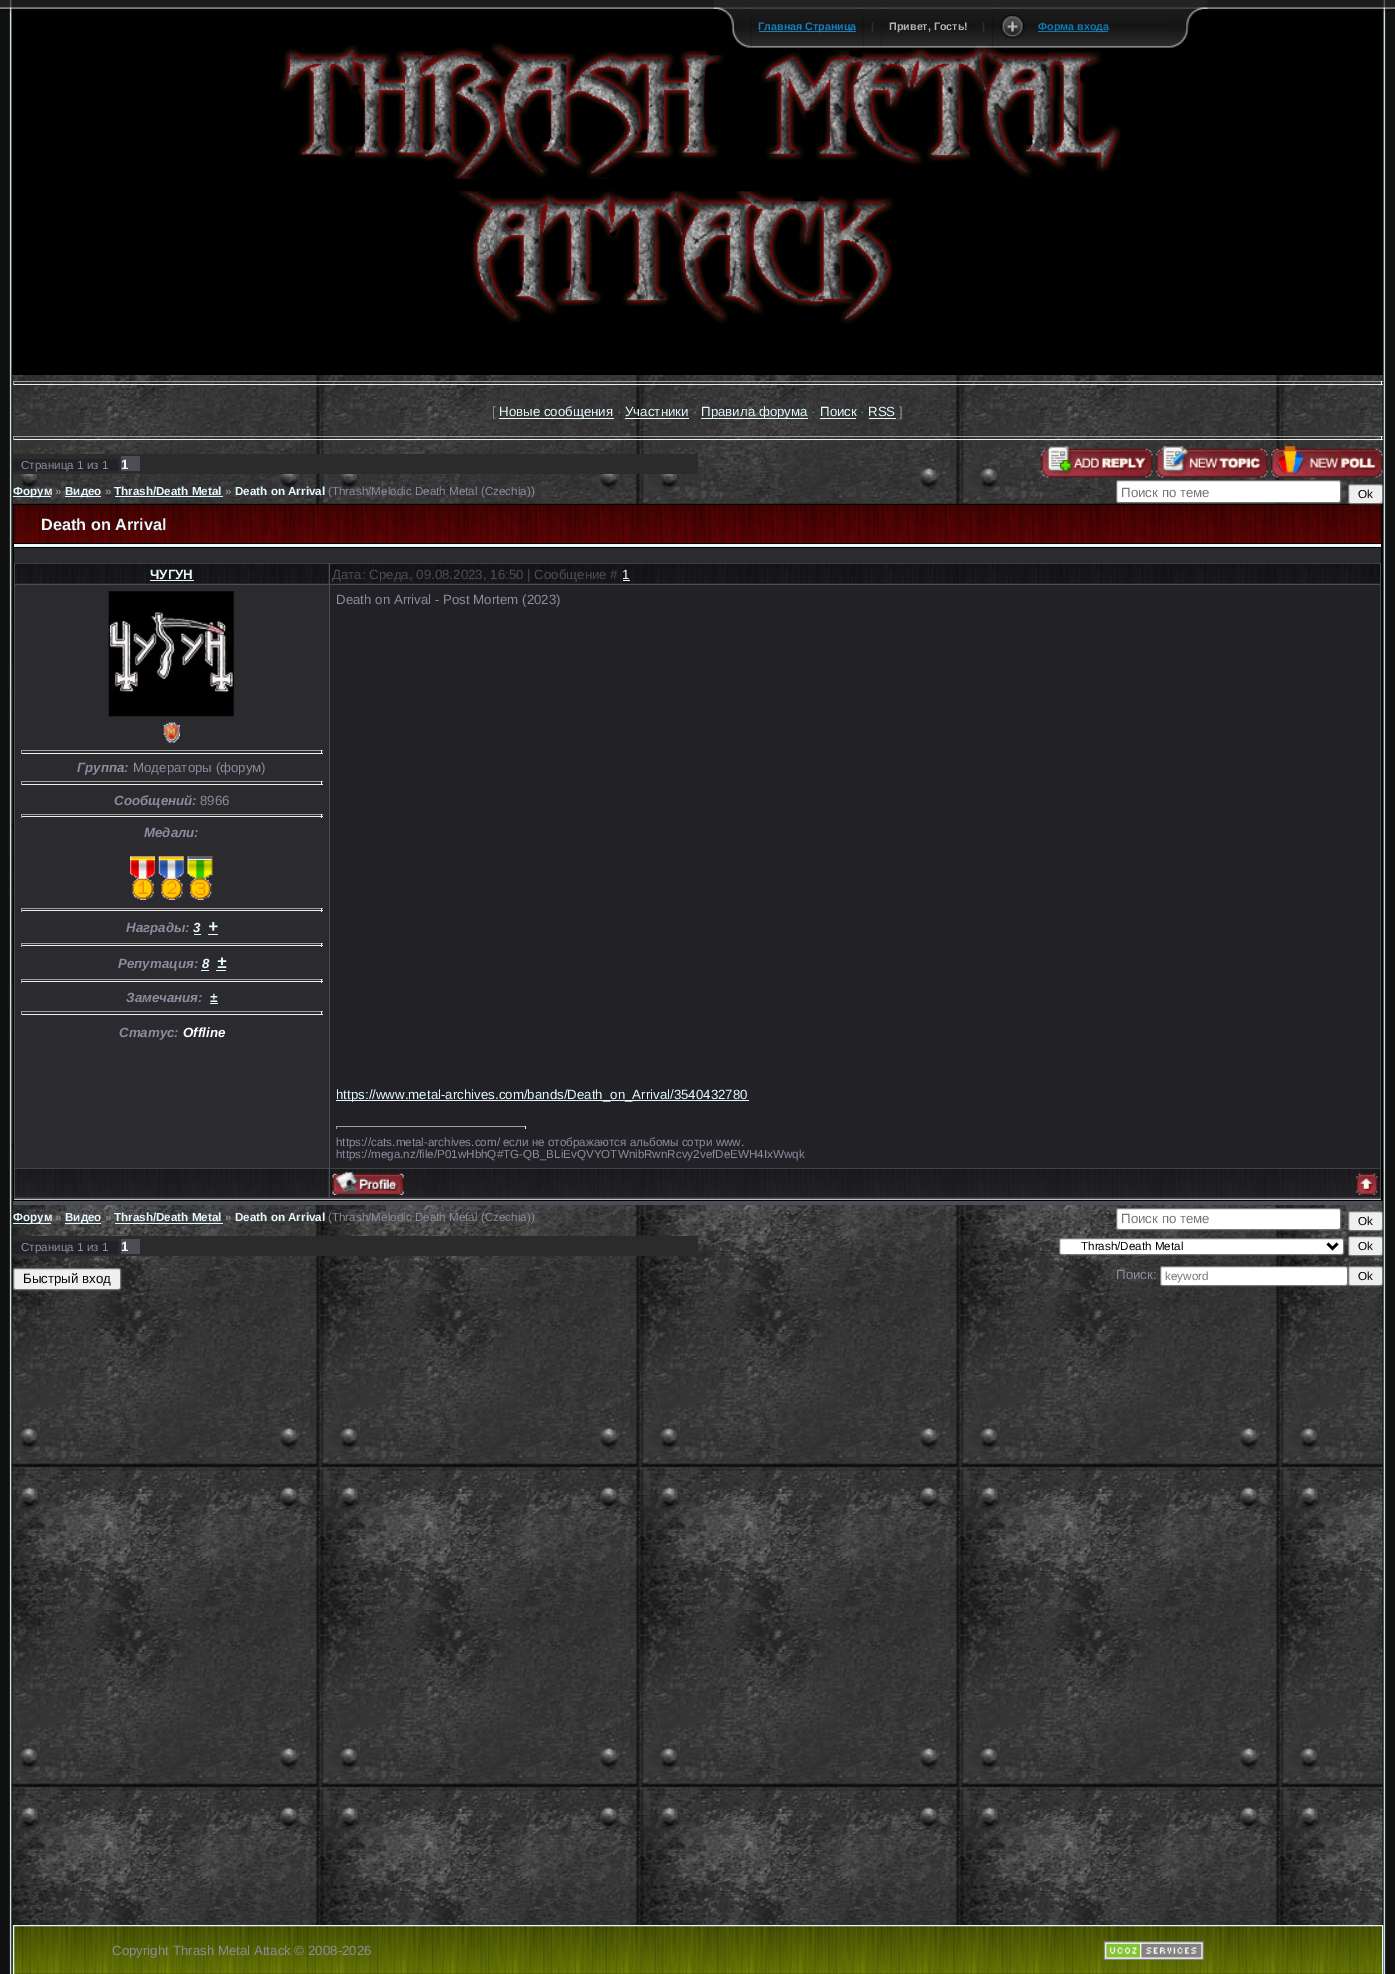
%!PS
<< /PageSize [1395 1974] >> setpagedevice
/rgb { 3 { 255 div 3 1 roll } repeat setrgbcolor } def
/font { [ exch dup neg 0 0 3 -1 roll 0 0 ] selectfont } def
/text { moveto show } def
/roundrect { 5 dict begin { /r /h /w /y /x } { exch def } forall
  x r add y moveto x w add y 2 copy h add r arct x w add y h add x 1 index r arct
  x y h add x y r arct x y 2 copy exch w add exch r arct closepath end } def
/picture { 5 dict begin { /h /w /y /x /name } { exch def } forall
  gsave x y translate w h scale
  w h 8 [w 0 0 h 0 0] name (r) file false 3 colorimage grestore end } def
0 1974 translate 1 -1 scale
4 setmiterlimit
255 255 255 rgb
0 0 1395 1974 rectfill
(img_01.rgb) 12 375 1371 1599 picture
(img_11.rgb) 0 0 13 1974 picture
0 0 0 rgb
12 0 1371 375 rectfill
13 504 1370 697 rectfill
77 77 86 rgb
13 1201 1370 4 rectfill
(img_28.rgb) 1382 0 13 1974 picture
(img_02.rgb) 0 0 1395 13 picture
(img_12.rgb) 280 42 841 282 picture
(img_03.rgb) 713 0 39 48 picture
(img_04.rgb) 751 0 113 48 picture
22 129 186 rgb
759 31 97 1 rectfill
(img_05.rgb) 863 0 19 48 picture
(img_06.rgb) 881 0 94 48 picture
(img_07.rgb) 975 0 18 51 picture
(img_08.rgb) 992 0 178 48 picture
(img_09.rgb) 1000 14 25 25 picture
15 121 179 rgb
1038 31 70 1 rectfill
(img_10.rgb) 1170 0 38 48 picture
159 159 159 rgb
13 381 1370 1 rectfill
238 238 238 rgb
1381 381 1 4 rectfill
13 384 1370 1 rectfill
159 159 159 rgb
13 381 1 4 rectfill
228 250 253 rgb
499 418 115 1 rectfill
625 418 64 1 rectfill
701 418 107 1 rectfill
820 418 36 1 rectfill
869 418 27 1 rectfill
159 159 159 rgb
13 436 1370 1 rectfill
238 238 238 rgb
1381 436 1 4 rectfill
13 439 1370 1 rectfill
159 159 159 rgb
13 436 1 4 rectfill
43 43 43 rgb
13 454 685 20 rectfill
34 34 38 rgb
13 459 105 12 rectfill
77 77 86 rgb
121 456 19 15 rectfill
(img_13.rgb) 1041 446 112 32 picture
(img_14.rgb) 1156 446 112 32 picture
(img_15.rgb) 1271 446 112 32 picture
228 250 253 rgb
13 496 38 1 rectfill
65 496 36 1 rectfill
115 496 108 1 rectfill
255 255 255 rgb
1116.5 480.5 224 22 2 roundrect gsave fill grestore
118 118 118 rgb
stroke
239 239 239 rgb
1348.5 484.5 34 19 2 roundrect gsave fill grestore
118 118 118 rgb
stroke
83 3 3 rgb
14 542 1367 1 rectfill
(img_16.rgb) 13 505 1369 38 picture
228 250 253 rgb
14 544 1367 3 rectfill
42 42 47 rgb
14 548 1367 15 rectfill
192 192 192 rgb
14 1199 1367 1 rectfill
77 77 86 rgb
14 563 1367 636 rectfill
(img_17.rgb) 15 563 314 21 picture
228 250 253 rgb
150 580 44 1 rectfill
(img_18.rgb) 330 563 1050 21 picture
623 580 7 1 rectfill
42 42 47 rgb
15 585 314 583 rectfill
(img_19.rgb) 108 591 126 126 picture
(img_20.rgb) 163 722 17 21 picture
159 159 159 rgb
21 750 302 1 rectfill
238 238 238 rgb
321 750 1 4 rectfill
21 753 302 1 rectfill
159 159 159 rgb
21 750 1 4 rectfill
21 781 302 1 rectfill
238 238 238 rgb
321 781 1 4 rectfill
21 784 302 1 rectfill
159 159 159 rgb
21 781 1 4 rectfill
21 814 302 1 rectfill
238 238 238 rgb
321 814 1 4 rectfill
21 816 302 1 rectfill
159 159 159 rgb
21 814 1 4 rectfill
(img_21.rgb) 130 856 25 44 picture
(img_22.rgb) 158 856 26 44 picture
(img_23.rgb) 187 856 26 44 picture
21 908 302 1 rectfill
238 238 238 rgb
321 908 1 4 rectfill
21 910 302 1 rectfill
159 159 159 rgb
21 908 1 4 rectfill
228 250 253 rgb
194 934 7 1 rectfill
208 934 10 1 rectfill
159 159 159 rgb
21 943 302 1 rectfill
238 238 238 rgb
321 943 1 4 rectfill
21 945 302 1 rectfill
159 159 159 rgb
21 943 1 4 rectfill
228 250 253 rgb
201 970 8 1 rectfill
216 970 10 1 rectfill
159 159 159 rgb
21 979 302 1 rectfill
238 238 238 rgb
321 979 1 4 rectfill
21 981 302 1 rectfill
159 159 159 rgb
21 979 1 4 rectfill
228 250 253 rgb
210 1003 8 1 rectfill
159 159 159 rgb
21 1011 302 1 rectfill
238 238 238 rgb
321 1011 1 4 rectfill
21 1014 302 1 rectfill
159 159 159 rgb
21 1011 1 4 rectfill
34 34 38 rgb
330 585 1050 583 rectfill
228 250 253 rgb
336 1100 413 1 rectfill
159 159 159 rgb
336 1126 190 1 rectfill
238 238 238 rgb
525 1126 1 3 rectfill
159 159 159 rgb
336 1126 1 3 rectfill
(img_24.rgb) 15 1168 314 30 picture
(img_25.rgb) 330 1168 1050 30 picture
(img_26.rgb) 332 1172 72 23 picture
(img_27.rgb) 1356 1173 22 22 picture
228 250 253 rgb
13 1223 38 1 rectfill
65 1223 36 1 rectfill
115 1223 108 1 rectfill
255 255 255 rgb
1116.5 1208.5 224 21 2 roundrect gsave fill grestore
118 118 118 rgb
stroke
239 239 239 rgb
1348.5 1211.5 34 19 2 roundrect gsave fill grestore
118 118 118 rgb
stroke
43 43 43 rgb
13 1236 685 20 rectfill
34 34 38 rgb
13 1241 105 13 rectfill
77 77 86 rgb
121 1239 19 15 rectfill
255 255 255 rgb
1059.5 1238.5 284 16 2 roundrect gsave fill grestore
118 118 118 rgb
stroke
0 0 0 rgb
2.5 setlinewidth
1327.5 1243.5 moveto 5 5 rlineto 5 -5 rlineto stroke
239 239 239 rgb
1348.5 1236.5 34 19 2 roundrect gsave fill grestore
118 118 118 rgb
1 setlinewidth
stroke
239 239 239 rgb
13.5 1268.5 107 21 2 roundrect gsave fill grestore
118 118 118 rgb
stroke
255 255 255 rgb
1160.5 1266.5 187 19 2 roundrect gsave fill grestore
118 118 118 rgb
stroke
239 239 239 rgb
1348.5 1266.5 34 19 2 roundrect gsave fill grestore
118 118 118 rgb
stroke
(img_29.rgb) 12 1925 1370 49 picture
228 250 253 rgb
13.5 1925.5 1369 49 rectstroke
(img_30.rgb) 1103 1941 101 19 picture
/LiberationSans-Bold 10.75 font
21 128 186 rgb
(Главная Страница) 758 30 text
46 46 46 rgb
(|) 871 30 text
179 179 179 rgb
(Привет, Гость!) 889 30 text
46 46 46 rgb
(|) 982 30 text
15 121 179 rgb
(Форма входа) 1038 30 text
/LiberationSans-Regular 13.3 font
140 140 156 rgb
([) 492 416 text
228 250 253 rgb
(Новые сообщения) 499 416 text
140 140 156 rgb
(·) 617 416 text
228 250 253 rgb
(Участники) 625 416 text
140 140 156 rgb
(·) 693 416 text
228 250 253 rgb
(Правила форума) 701 416 text
140 140 156 rgb
(·) 811 416 text
228 250 253 rgb
(Поиск) 820 416 text
140 140 156 rgb
(·) 860 416 text
228 250 253 rgb
(RSS) 868 416 text
140 140 156 rgb
(]) 899 416 text
/LiberationSans-Regular 11.65 font
(Страница 1 из 1) 21 469 text
/LiberationSans-Bold 13.3 font
228 250 253 rgb
(1) 121 469 text
/LiberationSans-Bold 11.65 font
(Форум) 13 495 text
140 140 156 rgb
(») 55 495 text
228 250 253 rgb
(Видео) 65 495 text
140 140 156 rgb
(») 105 495 text
228 250 253 rgb
(Thrash/Death Metal) 114 495 text
140 140 156 rgb
(») 225 495 text
228 250 253 rgb
(Death on Arrival) 235 495 text
/LiberationSans-Regular 11.65 font
140 140 156 rgb
(\(Thrash/Melodic Death Metal \(Czechia\)\)) 328 495 text
/LiberationSans-Regular 13.3 font
117 117 117 rgb
(Поиск по теме) 1121 497 text
/LiberationSans-Regular 11.65 font
0 0 0 rgb
(Ok) 1358 498 text
/LiberationSans-Bold 16.25 font
228 250 253 rgb
(Death on Arrival) 41 530 text
/LiberationSans-Bold 13.3 font
(ЧУГУН) 150 579 text
/LiberationSans-Regular 13.3 font
77 77 86 rgb
(Дата: Среда, 09.08.2023, 16:50 | Сообщение #) 332 579 text
228 250 253 rgb
(1) 622 579 text
/LiberationSans-BoldItalic 13.3 font
140 140 156 rgb
(Группа:) 77 772 text
/LiberationSans-Regular 13.3 font
(Модераторы \(форум\)) 133 772 text
/LiberationSans-BoldItalic 13.3 font
(Сообщений:) 114 805 text
/LiberationSans-Regular 13.3 font
(8966) 200 805 text
/LiberationSans-BoldItalic 13.3 font
(Медали:) 144 837 text
(Награды:) 126 932 text
228 250 253 rgb
(3) 193 932 text
/LiberationSans-BoldItalic 17 font
(+) 208 932 text
/LiberationSans-BoldItalic 13.3 font
140 140 156 rgb
(Репутация:) 118 968 text
228 250 253 rgb
(8) 202 968 text
/LiberationSans-BoldItalic 17 font
(±) 217 968 text
/LiberationSans-BoldItalic 13.3 font
140 140 156 rgb
(Замечания:) 126 1002 text
228 250 253 rgb
(±) 210 1002 text
140 140 156 rgb
(Статус:) 119 1037 text
255 255 255 rgb
(Offline) 183 1037 text
/LiberationSans-Regular 13.3 font
140 140 156 rgb
(Death on Arrival - Post Mortem \(2023\)) 336 604 text
228 250 253 rgb
(https://www.metal-archives.com/bands/Death_on_Arrival/3540432780) 336 1099 text
/LiberationSans-Regular 11.65 font
140 140 156 rgb
(https://cats.metal-archives.com/ если не отображаются альбомы сотри www.) 336 1146 text
(https://mega.nz/file/P01wHbhQ#TG-QB_BLiEvQVYOTWnibRwnRcvy2vefDeEWH4IxWwqk) 336 1158 text
/LiberationSans-Bold 11.65 font
228 250 253 rgb
(Форум) 13 1221 text
140 140 156 rgb
(») 55 1221 text
228 250 253 rgb
(Видео) 65 1221 text
140 140 156 rgb
(») 105 1221 text
228 250 253 rgb
(Thrash/Death Metal) 114 1221 text
140 140 156 rgb
(») 225 1221 text
228 250 253 rgb
(Death on Arrival) 235 1221 text
/LiberationSans-Regular 11.65 font
140 140 156 rgb
(\(Thrash/Melodic Death Metal \(Czechia\)\)) 328 1221 text
/LiberationSans-Regular 13.3 font
117 117 117 rgb
(Поиск по теме) 1121 1223 text
/LiberationSans-Regular 11.65 font
0 0 0 rgb
(Ok) 1358 1225 text
140 140 156 rgb
(Страница 1 из 1) 21 1251 text
/LiberationSans-Bold 13.3 font
228 250 253 rgb
(1) 121 1251 text
/LiberationSans-Regular 11.65 font
0 0 0 rgb
(Thrash/Death Metal) 1081 1250 text
(Ok) 1358 1250 text
/LiberationSans-Regular 13.3 font
(Быстрый вход) 23 1283 text
140 140 156 rgb
(Поиск:) 1116 1279 text
/LiberationSans-Regular 11.65 font
117 117 117 rgb
(keyword) 1165 1280 text
0 0 0 rgb
(Ok) 1358 1280 text
/LiberationSans-Regular 13.3 font
140 140 156 rgb
(Copyright Thrash Metal Attack © 2008-2026) 112 1955 text
showpage
